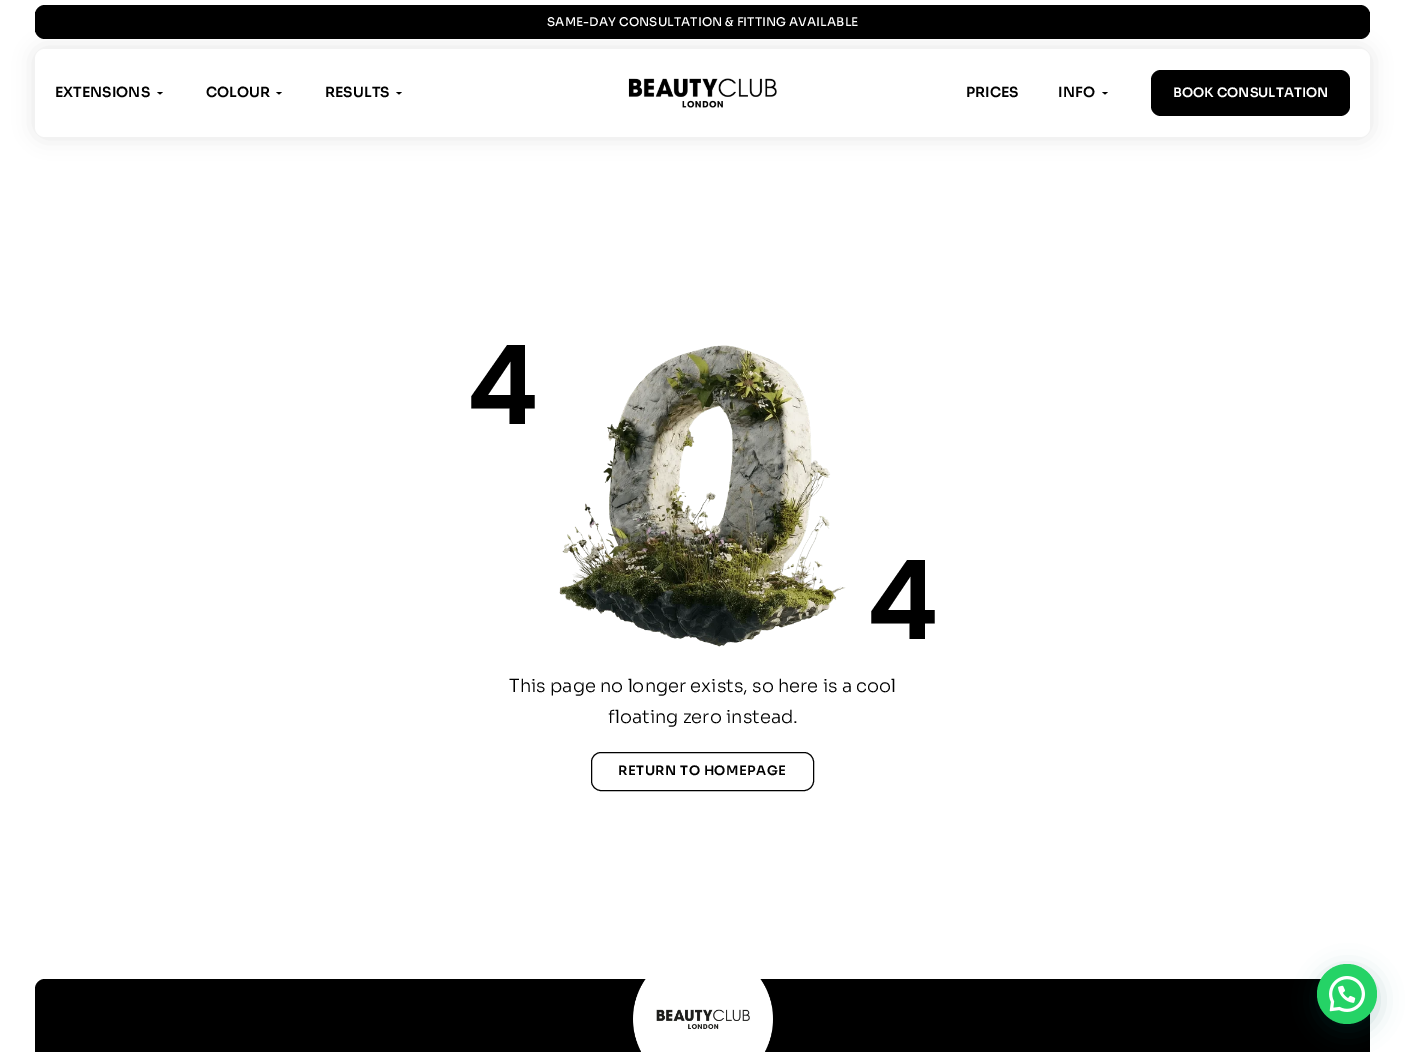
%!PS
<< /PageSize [1405 1052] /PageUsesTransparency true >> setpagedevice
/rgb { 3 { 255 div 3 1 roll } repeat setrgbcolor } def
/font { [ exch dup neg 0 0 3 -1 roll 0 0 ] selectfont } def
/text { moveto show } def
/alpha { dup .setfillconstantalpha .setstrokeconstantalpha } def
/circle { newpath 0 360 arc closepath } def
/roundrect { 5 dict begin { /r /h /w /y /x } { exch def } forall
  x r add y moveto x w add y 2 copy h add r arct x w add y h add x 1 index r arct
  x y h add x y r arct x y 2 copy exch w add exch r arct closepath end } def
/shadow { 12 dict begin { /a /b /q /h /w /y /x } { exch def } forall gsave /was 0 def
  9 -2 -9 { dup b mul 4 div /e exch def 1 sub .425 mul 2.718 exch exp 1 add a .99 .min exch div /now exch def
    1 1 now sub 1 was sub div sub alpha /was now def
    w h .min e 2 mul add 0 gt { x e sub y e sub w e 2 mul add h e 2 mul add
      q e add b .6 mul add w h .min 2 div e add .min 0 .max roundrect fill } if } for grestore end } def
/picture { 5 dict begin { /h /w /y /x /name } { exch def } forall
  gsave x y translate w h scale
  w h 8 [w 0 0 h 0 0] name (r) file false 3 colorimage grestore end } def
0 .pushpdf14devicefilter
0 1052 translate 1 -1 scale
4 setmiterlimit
255 255 255 rgb
0 0 1405 1052 rectfill
0 0 0 rgb
34 48 1337 90 11 10 0.1 shadow
35 5 1335 34 10 roundrect fill
gsave
35 5 1335 34 10 roundrect clip newpath
35 12 1335 20 rectfill
grestore
255 255 255 rgb
35 49 1335 88 10 roundrect fill
0 0 0 rgb
160 94.5 moveto -3 -2.5 rlineto 6 0 rlineto closepath fill
279 94.5 moveto -3 -2.5 rlineto 6 0 rlineto closepath fill
399 94.5 moveto -3 -2.5 rlineto 6 0 rlineto closepath fill
(img_01.rgb) 628 78 149 30 picture
1105 94.5 moveto -3 -2.5 rlineto 6 0 rlineto closepath fill
1151 70 199 46 10 roundrect fill
(img_02.rgb) 559 345 287 302 picture
591.5 752.5 222 38 9.5 roundrect stroke
35 979 1335 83 10 roundrect fill
7 94 84 rgb
1318 970 60 60 30 12 0.24 shadow
37 211 102 rgb
1347 994 30 circle fill
(img_03.rgb) 1329 976 36 36 picture
(img_04.rgb) 633 979 140 73 picture
/Sora-Medium 12 font
255 255 255 rgb
547 26 moveto 0.1 0 (SAME-DAY CONSULTATION & FITTING AVAILABLE) ashow
/Sora-SemiBold 14 font
0 0 0 rgb
(EXTENSIONS) 55 97 text
(COLOUR) 206 97 text
(RESULTS) 325 97 text
(PRICES) 966 97 text
(INFO) 1058 97 text
/Sora-SemiBold 13 font
255 255 255 rgb
(BOOK CONSULTATION) 1173 97 text
/Poppins-SemiBold 110 font
0 0 0 rgb
(4) 466 424 text
(4) 866 639 text
/Sora-Light 18 font
(This page no longer exists, so here is a cool) 509 692 text
(floating zero instead.) 608 723 text
/Sora-SemiBold 13 font
618 775 moveto 0.5 0 (RETURN TO HOMEPAGE) ashow
.poppdf14devicefilter showpage
